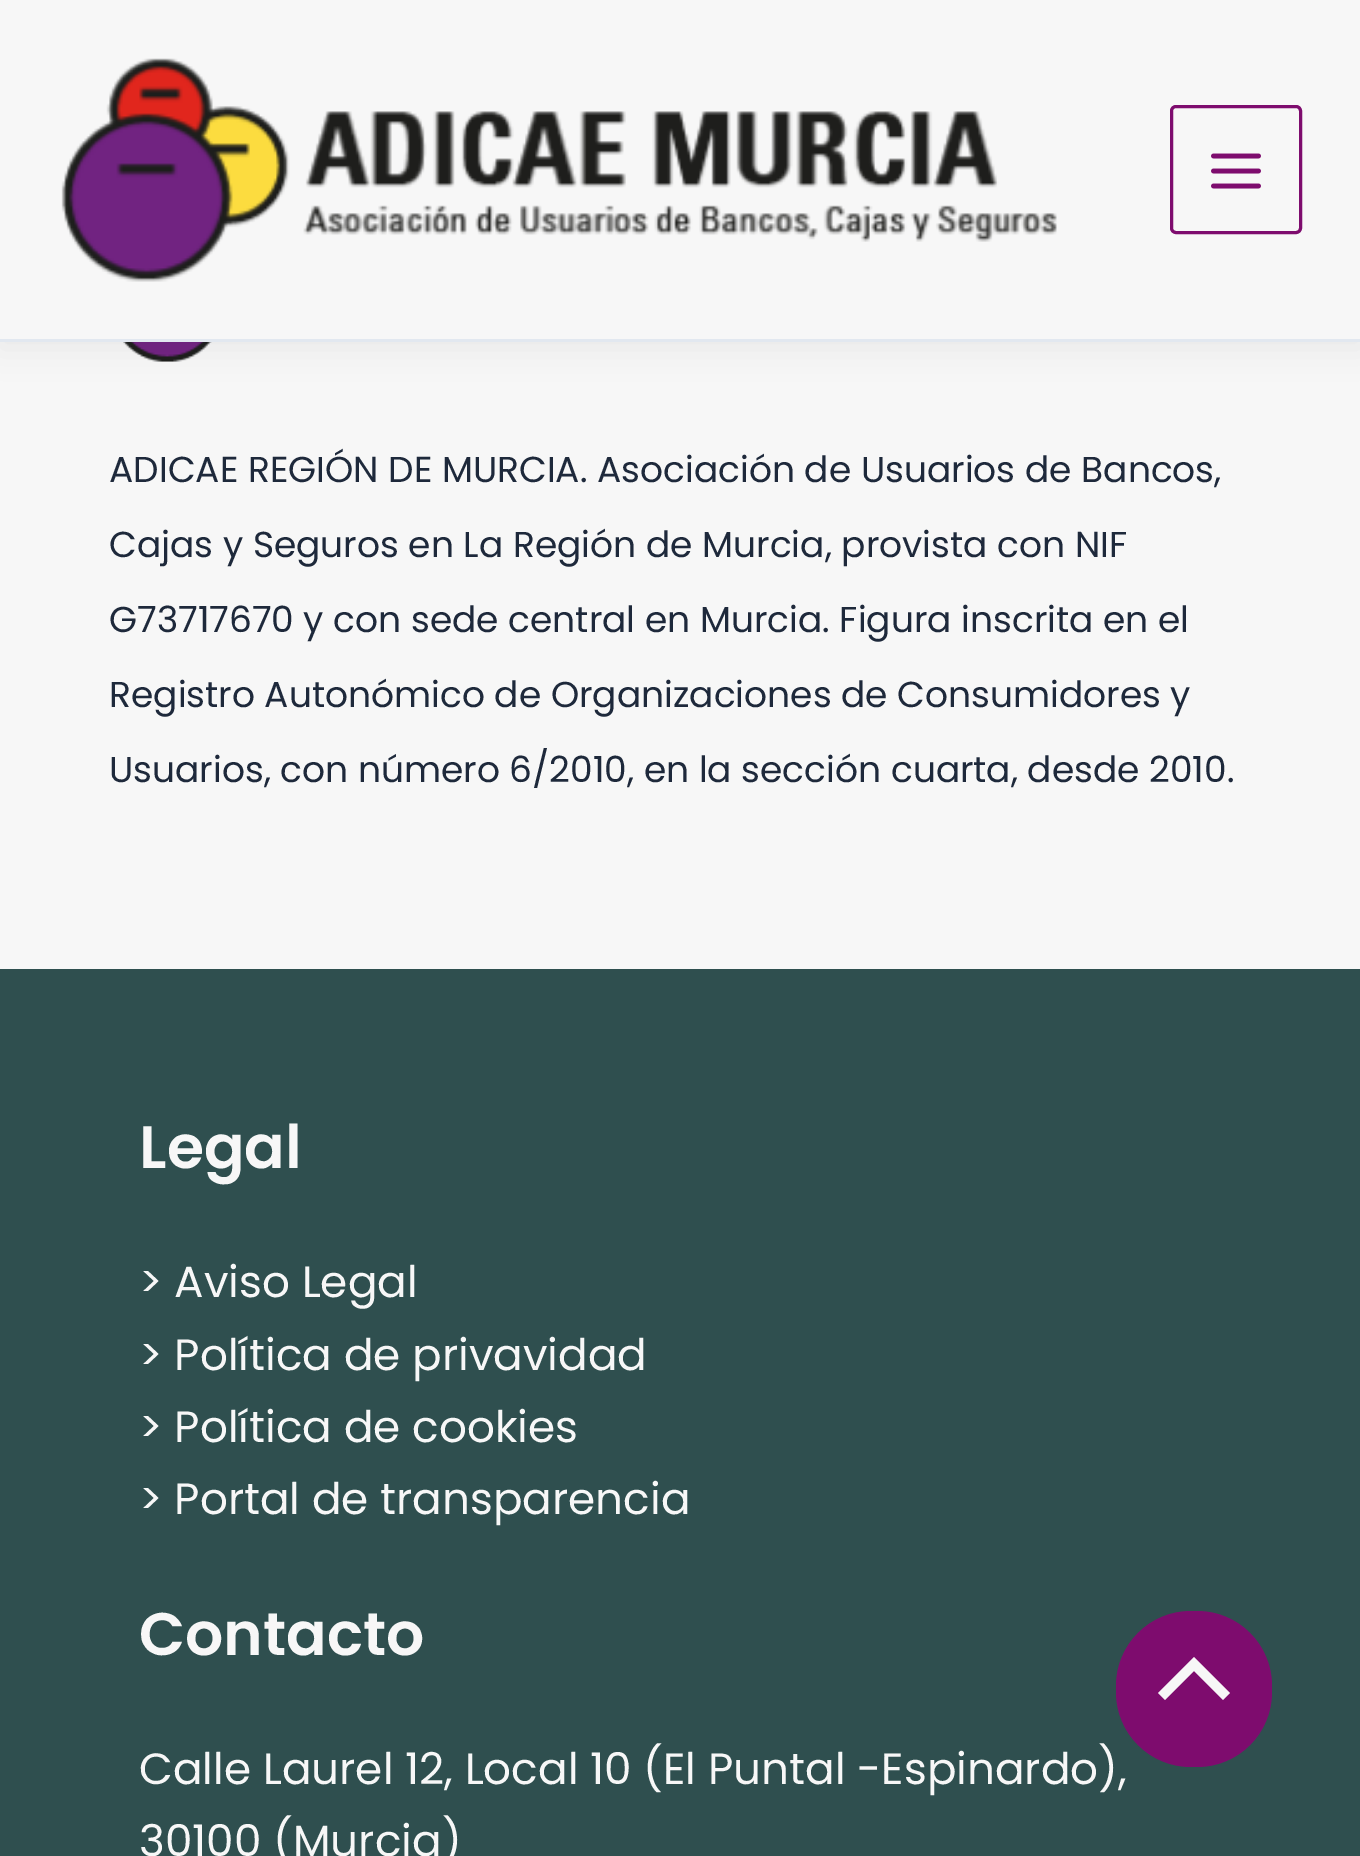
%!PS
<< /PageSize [1360 1856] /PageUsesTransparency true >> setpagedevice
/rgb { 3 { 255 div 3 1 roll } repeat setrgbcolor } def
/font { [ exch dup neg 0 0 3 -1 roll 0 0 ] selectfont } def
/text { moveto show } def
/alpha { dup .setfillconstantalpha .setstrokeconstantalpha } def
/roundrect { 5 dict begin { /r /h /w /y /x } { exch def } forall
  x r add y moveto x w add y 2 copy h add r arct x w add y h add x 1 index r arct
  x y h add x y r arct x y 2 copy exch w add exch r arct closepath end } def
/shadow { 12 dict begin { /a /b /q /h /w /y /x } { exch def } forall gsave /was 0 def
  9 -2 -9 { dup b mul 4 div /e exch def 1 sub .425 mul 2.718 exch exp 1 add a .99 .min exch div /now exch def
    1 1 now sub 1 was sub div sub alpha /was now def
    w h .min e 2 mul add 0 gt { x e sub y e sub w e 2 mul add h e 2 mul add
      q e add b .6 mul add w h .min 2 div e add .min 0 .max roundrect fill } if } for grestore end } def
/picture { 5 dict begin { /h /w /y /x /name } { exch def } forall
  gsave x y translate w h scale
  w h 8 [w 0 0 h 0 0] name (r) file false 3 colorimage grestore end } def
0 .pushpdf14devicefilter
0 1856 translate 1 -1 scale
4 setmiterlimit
247 247 247 rgb
0 0 1360 1856 rectfill
(img_03.rgb) 123 342 89 20 picture
36 50 66 rgb
0 6 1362 342 0 15 0.07 shadow
247 247 247 rgb
0 0 1360 339 rectfill
226 232 240 rgb
0 339 1360 3 rectfill
(img_01.rgb) 61 58 996 224 picture
126 12 110 rgb
3 setlinewidth
1171.5 106.5 129 126 4.5 roundrect stroke
(img_02.rgb) 1211 153 50 36 picture
47 79 79 rgb
0 969 1360 887 rectfill
/Poppins-Regular 36 font
30 41 59 rgb
(ADICAE REGIÓN DE MURCIA. Asociación de Usuarios de Bancos,) 109 482 text
(Cajas y Seguros en La Región de Murcia, provista con NIF) 109 557 text
(G73717670 y con sede central en Murcia. Figura inscrita en el) 109 632 text
(Registro Autonómico de Organizaciones de Consumidores y) 109 707 text
(Usuarios, con número 6/2010, en la sección cuarta, desde 2010.) 109 782 text
/Poppins-SemiBold 60 font
247 247 247 rgb
(Legal) 139 1168 text
/Poppins-Regular 43.75 font
(> Aviso Legal) 139 1297 text
(> Política de privavidad) 139 1370 text
(> Política de cookies) 139 1442 text
(> Portal de transparencia) 139 1514 text
/Poppins-SemiBold 60 font
(Contacto) 139 1655 text
/Poppins-Regular 43.75 font
(Calle Laurel 12, Local 10 \(El Puntal -Espinardo\),) 139 1784 text
(30100 \(Murcia\)) 139 1856 text
126 12 110 rgb
1116 1611 156 156 75 roundrect fill
247 247 247 rgb
1230 1693 moveto -36 -36 rlineto -36 36 rlineto 7 7 rlineto 29 -29 rlineto 29 29 rlineto closepath fill
.poppdf14devicefilter showpage
